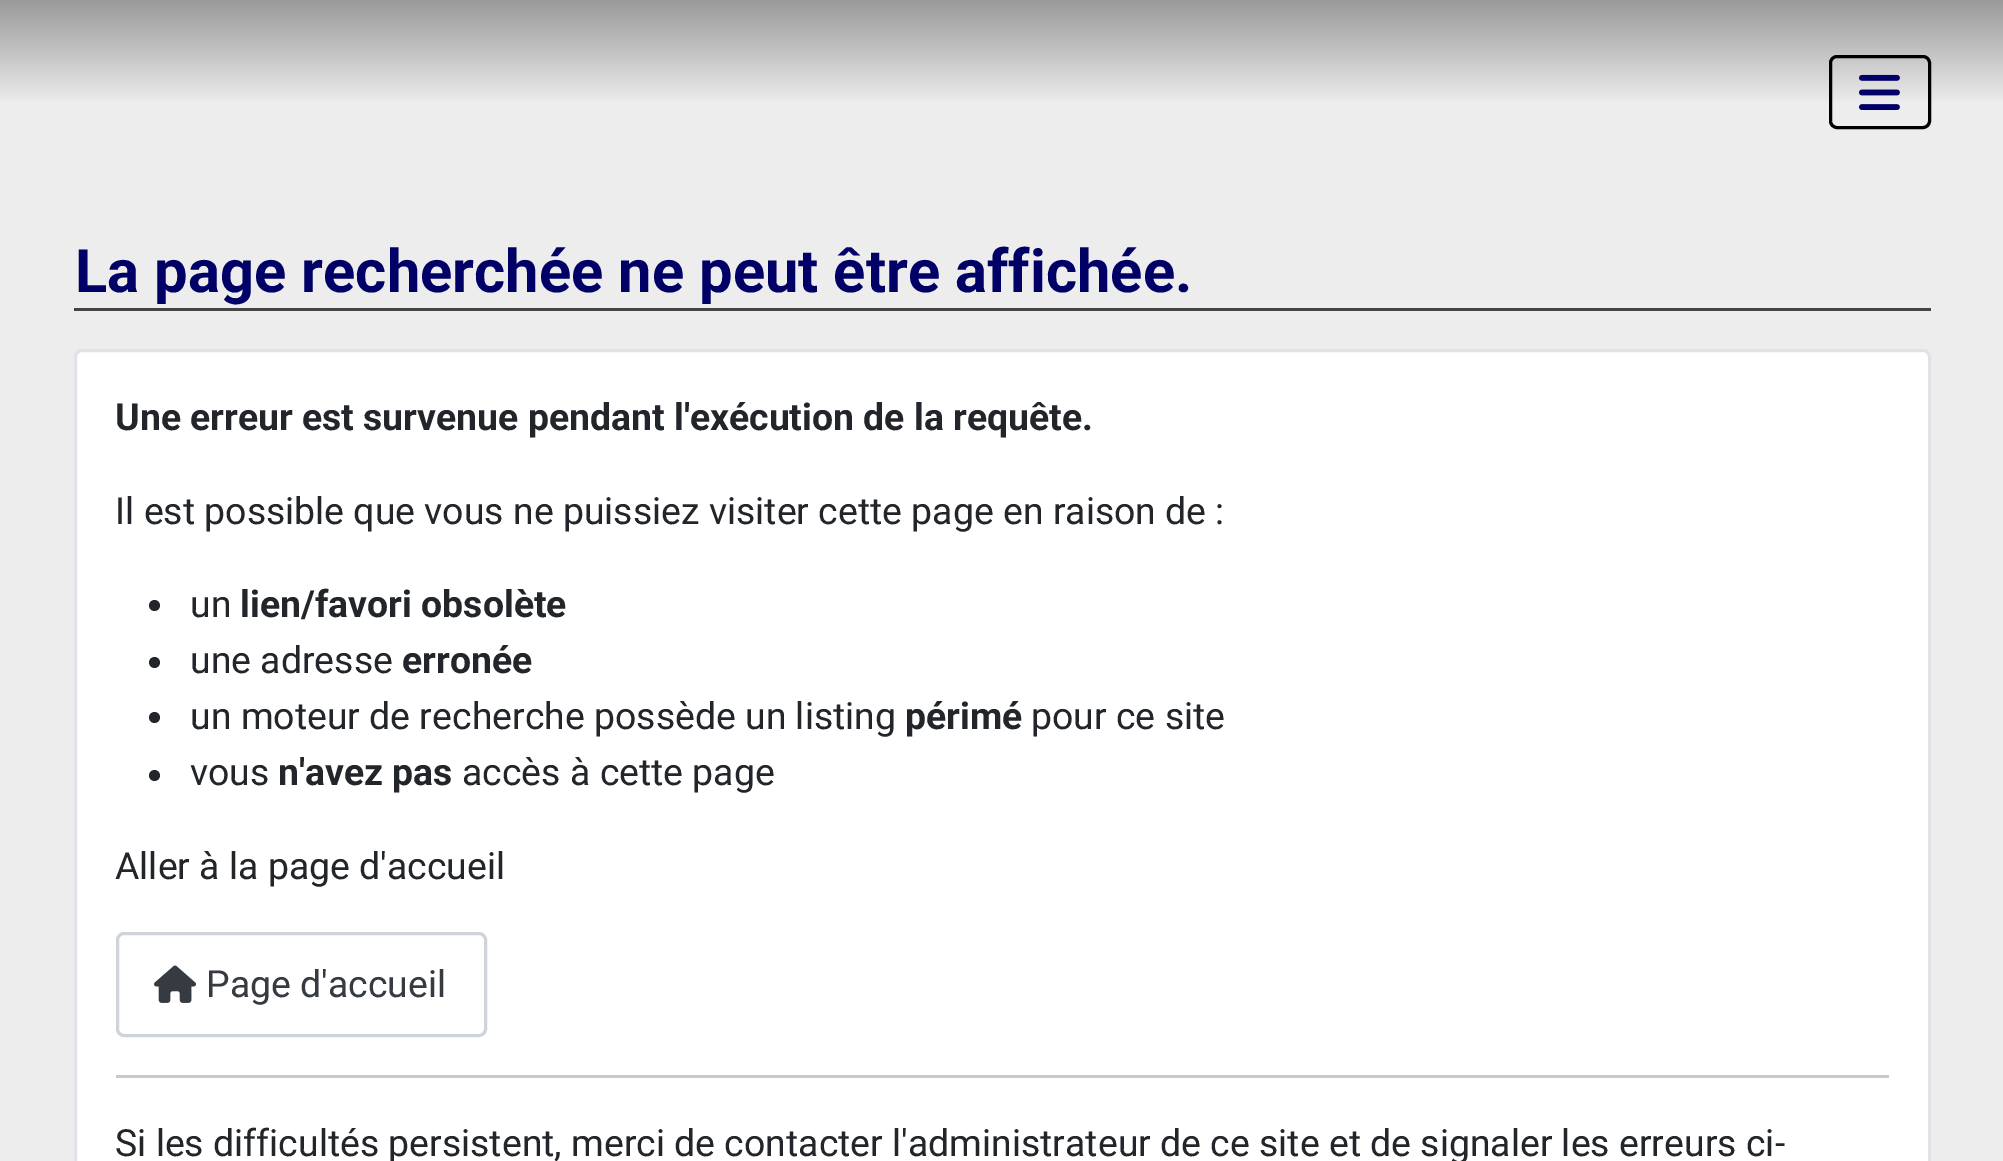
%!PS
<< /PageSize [2003 1161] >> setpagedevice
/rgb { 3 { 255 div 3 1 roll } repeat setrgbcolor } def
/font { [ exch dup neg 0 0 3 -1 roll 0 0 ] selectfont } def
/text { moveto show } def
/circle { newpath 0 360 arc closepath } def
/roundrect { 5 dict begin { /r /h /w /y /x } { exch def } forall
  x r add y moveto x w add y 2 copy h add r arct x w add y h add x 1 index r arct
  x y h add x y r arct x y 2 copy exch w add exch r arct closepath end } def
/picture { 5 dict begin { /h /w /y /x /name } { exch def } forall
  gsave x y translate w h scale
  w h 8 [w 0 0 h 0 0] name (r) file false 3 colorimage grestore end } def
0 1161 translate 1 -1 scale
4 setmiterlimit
237 237 237 rgb
0 0 2003 1161 rectfill
gsave 0 0 moveto 2003 0 rlineto 0 101 rlineto -2003 0 rlineto closepath clip newpath
<< /ShadingType 2 /ColorSpace /DeviceRGB /Coords [1002 176 1002 0] /Extend [true true] /Function << /FunctionType 3 /Domain [0 1] /Functions [<< /FunctionType 2 /Domain [0 1] /C0 [0.933 0.933 0.933] /C1 [0.933 0.933 0.933] /N 1 >> << /FunctionType 2 /Domain [0 1] /C0 [0.933 0.933 0.933] /C1 [0.604 0.604 0.604] /N 1 >>] /Bounds [0.4] /Encode [0 1 0 1] >> >> shfill grestore
0 0 0 rgb
3 setlinewidth
1830.5 56.5 99 71 6.5 roundrect stroke
(img_01.rgb) 1859 74 41 36 picture
68 68 68 rgb
74 308 1857 3 rectfill
255 255 255 rgb
75.5 350.5 1854 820 6.5 roundrect gsave fill grestore
223 227 231 rgb
stroke
34 38 42 rgb
154.5 605.5 5.5 circle fill
154.5 662.5 5.5 circle fill
154.5 717.5 5.5 circle fill
154.5 775.5 5.5 circle fill
206 212 218 rgb
117.5 933.5 368 102 6.5 roundrect stroke
(img_02.rgb) 154 965 43 38 picture
200 201 202 rgb
116 1075 1773 3 rectfill
/Roboto-Bold 59.8 font
0 0 102 rgb
(La page recherchée ne peut être affichée.) 75 292 text
/Roboto-Bold 37.4 font
34 38 42 rgb
(Une erreur est survenue pendant l'exécution de la requête.) 115 430 text
/Roboto-Regular 37.4 font
(Il est possible que vous ne puissiez visiter cette page en raison de :) 115 524 text
(un) 190 617 text
/Roboto-Bold 37.4 font
(lien/favori obsolète) 240 617 text
/Roboto-Regular 37.4 font
(une adresse) 190 673 text
/Roboto-Bold 37.4 font
(erronée) 402 673 text
/Roboto-Regular 37.4 font
(un moteur de recherche possède un listing) 190 729 text
/Roboto-Bold 37.4 font
(périmé) 905 729 text
/Roboto-Regular 37.4 font
(pour ce site) 1031 729 text
(vous) 190 785 text
/Roboto-Bold 37.4 font
(n'avez pas) 278 785 text
/Roboto-Regular 37.4 font
(accès à cette page) 462 785 text
(Aller à la page d'accueil) 115 879 text
53 59 65 rgb
(Page d'accueil) 206 997 text
34 38 42 rgb
(Si les difficultés persistent, merci de contacter l'administrateur de ce site et de signaler les erreurs ci-) 115 1156 text
showpage
